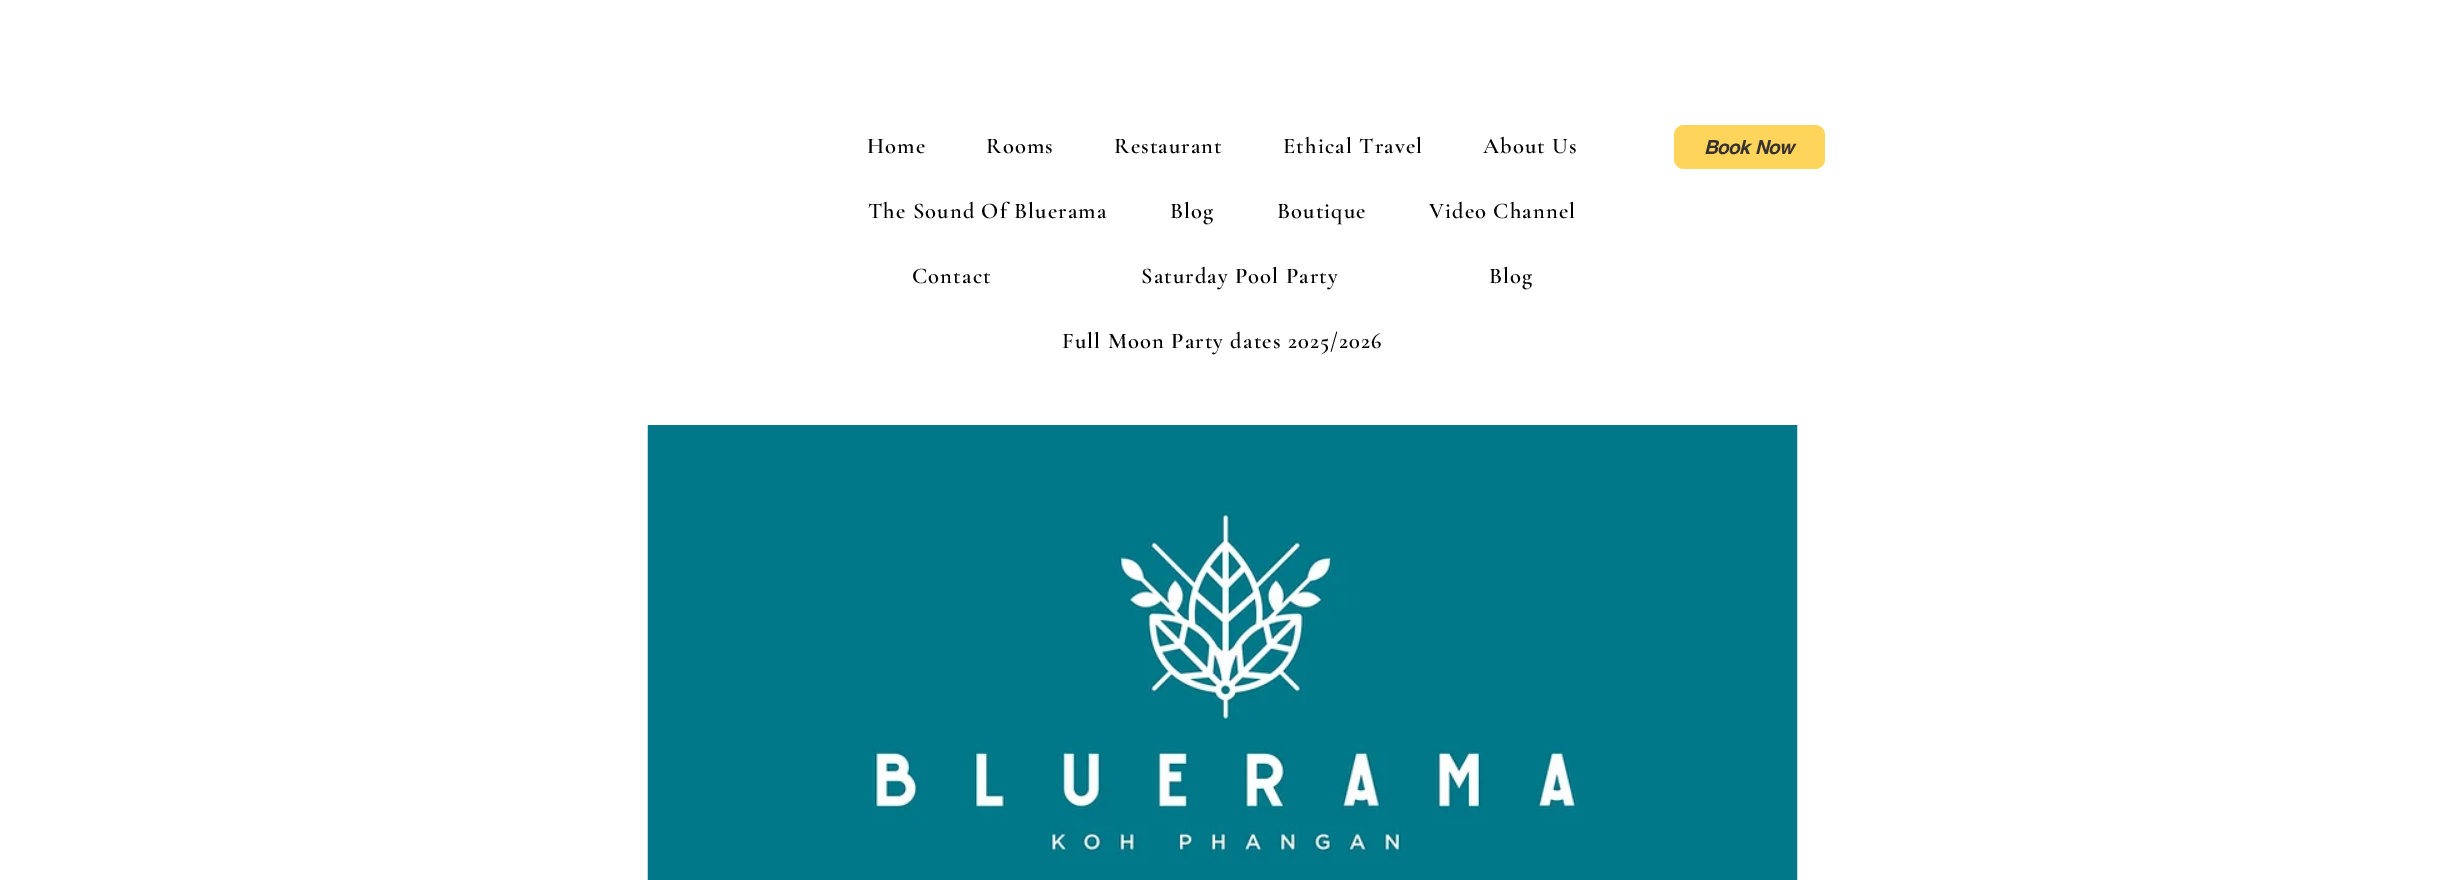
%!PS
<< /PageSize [2446 880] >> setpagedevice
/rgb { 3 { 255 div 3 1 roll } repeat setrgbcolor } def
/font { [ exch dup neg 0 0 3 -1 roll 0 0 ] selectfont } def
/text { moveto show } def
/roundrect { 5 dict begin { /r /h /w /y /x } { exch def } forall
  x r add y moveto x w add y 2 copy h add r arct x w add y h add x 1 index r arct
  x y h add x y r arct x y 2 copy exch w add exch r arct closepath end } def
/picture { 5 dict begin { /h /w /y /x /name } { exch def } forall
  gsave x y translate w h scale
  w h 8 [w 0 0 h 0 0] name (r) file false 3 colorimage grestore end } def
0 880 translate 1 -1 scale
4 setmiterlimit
255 255 255 rgb
0 0 2446 880 rectfill
255 212 90 rgb
1674 125 151 44 10 roundrect fill
(img_01.rgb) 647 425 1151 455 picture
/CormorantGaramond-SemiBold 22.5 font
0 0 0 rgb
867 153 moveto 1.1 0 (Home) ashow
986 153 moveto 1.1 0 (Rooms) ashow
1114 153 moveto 1.1 0 (Restaurant) ashow
1283 153 moveto 1.1 0 (Ethical Travel) ashow
1483 153 moveto 1.1 0 (About Us) ashow
868 218 moveto 1.1 0 (The Sound Of Bluerama) ashow
1170 218 moveto 1.1 0 (Blog) ashow
1277 218 moveto 1.1 0 (Boutique) ashow
1429 218 moveto 1.1 0 (Video Channel) ashow
912 283 moveto 1.1 0 (Contact) ashow
1141 283 moveto 1.1 0 (Saturday Pool Party) ashow
1489 283 moveto 1.1 0 (Blog) ashow
1062 348 moveto 1.1 0 (Full Moon Party dates 2025/2026) ashow
/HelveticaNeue-BoldItalic 18.75 font
53 49 49 rgb
(Book Now) 1704 154 text
showpage
